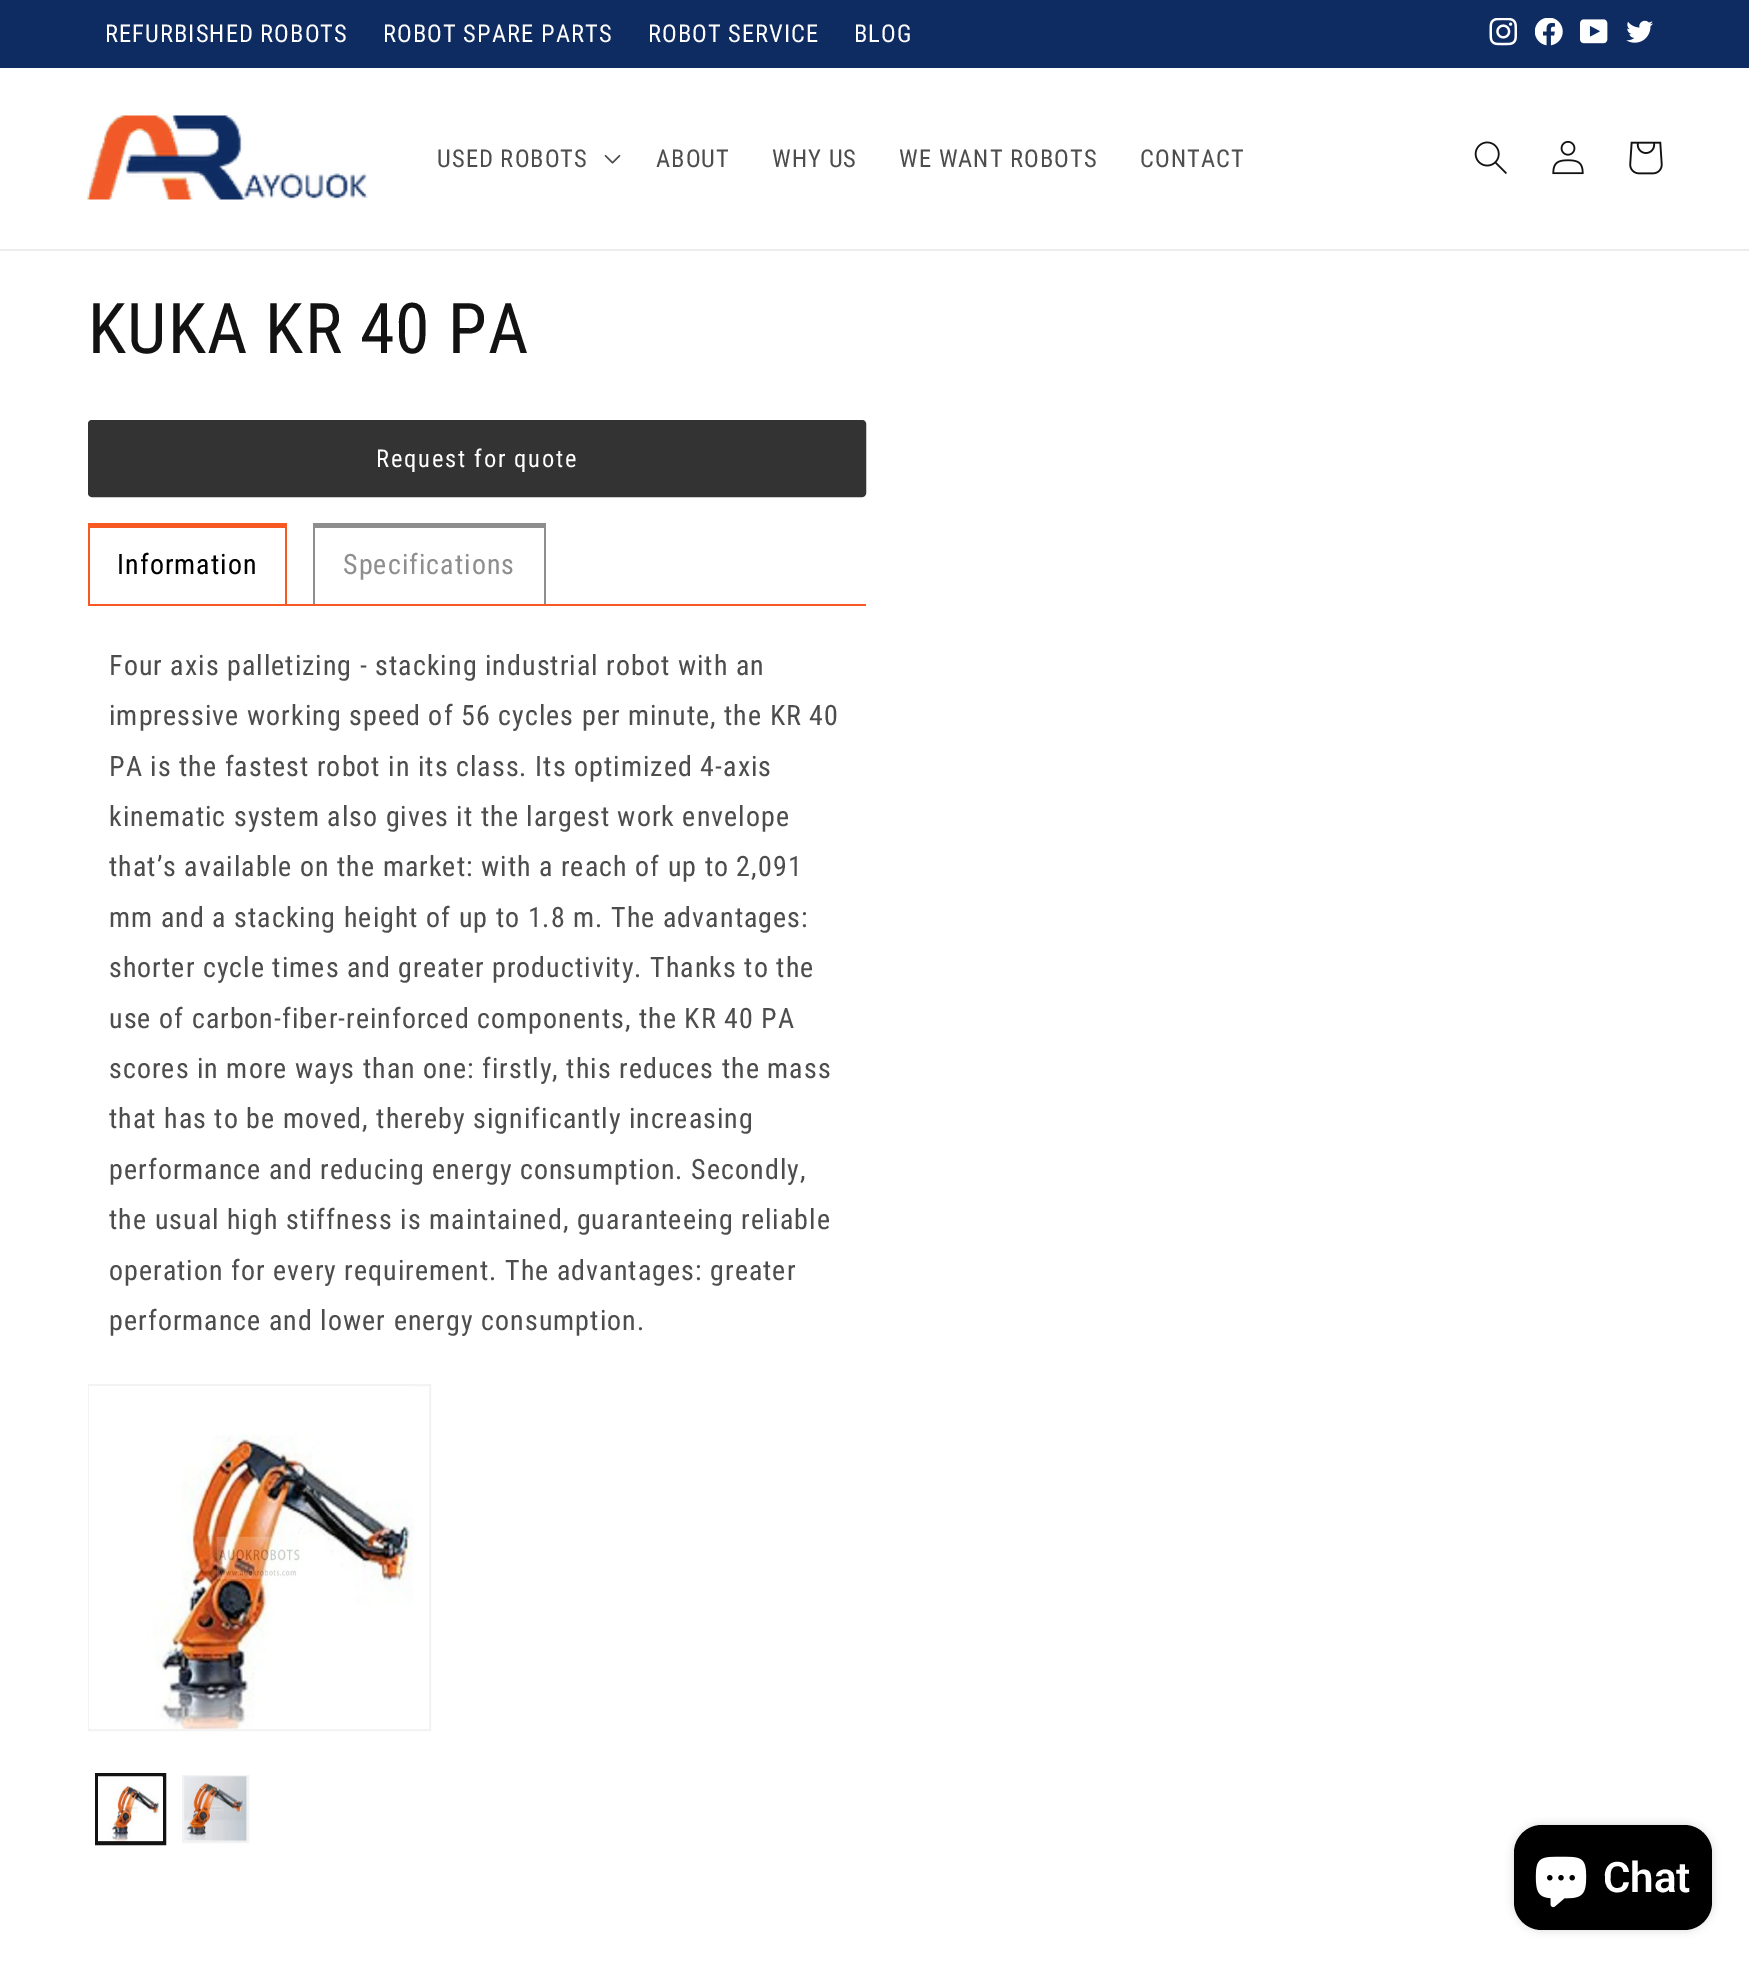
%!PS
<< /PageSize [1749 1966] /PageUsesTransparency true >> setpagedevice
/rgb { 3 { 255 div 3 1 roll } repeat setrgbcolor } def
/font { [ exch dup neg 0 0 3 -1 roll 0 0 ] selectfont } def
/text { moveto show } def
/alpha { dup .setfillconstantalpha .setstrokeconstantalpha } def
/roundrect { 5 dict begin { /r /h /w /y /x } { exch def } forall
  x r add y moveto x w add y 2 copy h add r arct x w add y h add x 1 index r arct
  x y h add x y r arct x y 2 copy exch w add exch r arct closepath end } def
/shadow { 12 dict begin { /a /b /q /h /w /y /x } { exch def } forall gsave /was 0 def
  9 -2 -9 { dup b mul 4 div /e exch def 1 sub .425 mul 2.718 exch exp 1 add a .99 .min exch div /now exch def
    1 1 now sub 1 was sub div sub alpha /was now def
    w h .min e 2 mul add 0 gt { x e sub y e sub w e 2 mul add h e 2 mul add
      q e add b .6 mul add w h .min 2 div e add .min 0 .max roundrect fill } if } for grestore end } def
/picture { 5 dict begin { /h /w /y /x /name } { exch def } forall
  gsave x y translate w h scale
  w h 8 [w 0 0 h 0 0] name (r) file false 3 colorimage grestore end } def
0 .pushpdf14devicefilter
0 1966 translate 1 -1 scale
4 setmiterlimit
255 255 255 rgb
0 0 1749 1966 rectfill
14 44 98 rgb
0 0 1749 68 rectfill
(img_01.rgb) 1489 18 28 28 picture
(img_02.rgb) 1535 18 28 28 picture
(img_03.rgb) 1580 19 28 25 picture
(img_04.rgb) 1626 20 27 23 picture
236 236 236 rgb
0 249 1749 2 rectfill
(img_05.rgb) 87 115 281 85 picture
(img_06.rgb) 604 154 17 10 picture
(img_07.rgb) 1474 141 33 33 picture
(img_08.rgb) 1552 140 32 35 picture
(img_09.rgb) 1629 141 34 34 picture
51 51 51 rgb
90 422 774 73 2 roundrect gsave fill grestore
4 setlinewidth
stroke
248 89 34 rgb
88 604 778 2 rectfill
88 523 199 5 rectfill
285 523 2 81 rectfill
88 523 2 81 rectfill
142 142 142 rgb
313 523 233 5 rectfill
544 523 2 81 rectfill
313 523 2 81 rectfill
243 243 243 rgb
2 setlinewidth
89 1385 341 345 rectstroke
(img_10.rgb) 89 1386 325 343 picture
18 18 18 rgb
96 1774 69 70 rectstroke
97 1776 67 66 rectstroke
(img_11.rgb) 98 1776 65 66 picture
243 243 243 rgb
183 1776 65 66 rectstroke
(img_12.rgb) 184 1776 63 66 picture
0 0 0 rgb
1514 1825 198 105 28 4.5 0.15 shadow
1514 1825 198 105 28 roundrect fill
(img_13.rgb) 1535 1856 52 52 picture
/RobotoCondensed-Regular 24.5 font
255 255 255 rgb
105 42 moveto 1.05 0 (REFURBISHED ROBOTS) ashow
383 42 moveto 1.05 0 (ROBOT SPARE PARTS) ashow
648 42 moveto 1.05 0 (ROBOT SERVICE) ashow
854 42 moveto 1.05 0 (BLOG) ashow
77 77 77 rgb
437 167 moveto 1.05 0 (USED ROBOTS) ashow
656 167 moveto 1.05 0 (ABOUT) ashow
772 167 moveto 1.05 0 (WHY US) ashow
899 167 moveto 1.05 0 (WE WANT ROBOTS) ashow
1140 167 moveto 1.05 0 (CONTACT) ashow
/RobotoCondensed-Regular 70 font
18 18 18 rgb
88 353 moveto 1.05 0 (KUKA KR 40 PA) ashow
/RobotoCondensed-Regular 24.5 font
255 255 255 rgb
376 467 moveto 1.75 0 (Request for quote) ashow
/RobotoCondensed-Regular 28 font
0 0 0 rgb
117 574 moveto 1.05 0 (Information) ashow
142 142 142 rgb
343 574 moveto 1.05 0 (Specifications) ashow
77 77 77 rgb
109 675 moveto 1.05 0 (Four axis palletizing - stacking industrial robot with an) ashow
109 725 moveto 1.05 0 (impressive working speed of 56 cycles per minute, the KR 40) ashow
109 776 moveto 1.05 0 (PA is the fastest robot in its class. Its optimized 4-axis) ashow
109 826 moveto 1.05 0 (kinematic system also gives it the largest work envelope) ashow
109 876 moveto 1.05 0 (that’s available on the market: with a reach of up to 2,091) ashow
109 927 moveto 1.05 0 (mm and a stacking height of up to 1.8 m. The advantages:) ashow
109 977 moveto 1.05 0 (shorter cycle times and greater productivity. Thanks to the) ashow
109 1028 moveto 1.05 0 (use of carbon-fiber-reinforced components, the KR 40 PA) ashow
109 1078 moveto 1.05 0 (scores in more ways than one: firstly, this reduces the mass) ashow
109 1128 moveto 1.05 0 (that has to be moved, thereby significantly increasing) ashow
109 1179 moveto 1.05 0 (performance and reducing energy consumption. Secondly,) ashow
109 1229 moveto 1.05 0 (the usual high stiffness is maintained, guaranteeing reliable) ashow
109 1280 moveto 1.05 0 (operation for every requirement. The advantages: greater) ashow
109 1330 moveto 1.05 0 (performance and lower energy consumption.) ashow
/Roboto-SemiBold 42 font
255 255 255 rgb
(Chat) 1603 1892 text
.poppdf14devicefilter showpage
